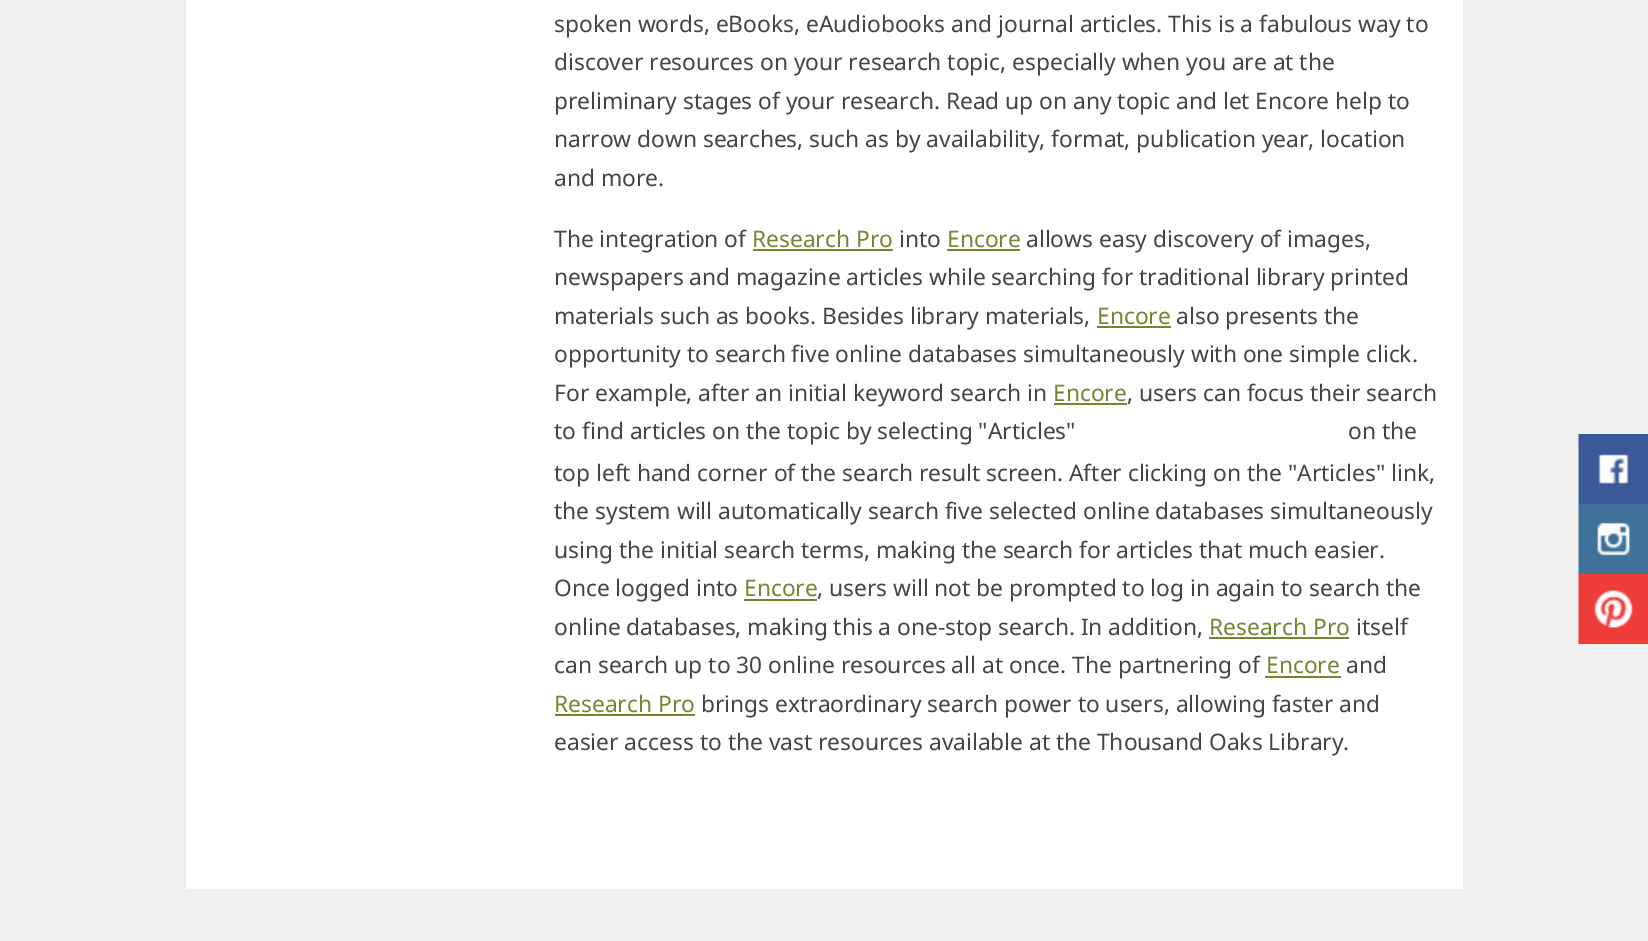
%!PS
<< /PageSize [1648 941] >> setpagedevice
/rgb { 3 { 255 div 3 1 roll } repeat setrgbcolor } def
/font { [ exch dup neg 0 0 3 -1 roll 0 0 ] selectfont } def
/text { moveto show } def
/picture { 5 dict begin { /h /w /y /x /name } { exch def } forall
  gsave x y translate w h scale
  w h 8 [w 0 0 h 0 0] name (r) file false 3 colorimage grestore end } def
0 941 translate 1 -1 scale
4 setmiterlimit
240 240 240 rgb
0 0 1648 941 rectfill
255 255 255 rgb
186 0 1277 889 rectfill
114 134 48 rgb
753 249 140 2 rectfill
947 249 73 2 rectfill
1097 326 74 2 rectfill
1054 403 73 2 rectfill
744 599 73 2 rectfill
1209 637 140 2 rectfill
1265 676 76 2 rectfill
555 714 140 2 rectfill
(img_01.rgb) 1578 434 70 70 picture
(img_02.rgb) 1578 504 70 70 picture
(img_03.rgb) 1578 574 70 70 picture
/NotoSans-Regular 22.75 font
68 68 68 rgb
(spoken words, eBooks, eAudiobooks and journal articles. This is a fabulous way to) 554 32 text
(discover resources on your research topic, especially when you are at the) 554 70 text
(preliminary stages of your research. Read up on any topic and let Encore help to) 554 109 text
(narrow down searches, such as by availability, format, publication year, location) 554 147 text
(and more.) 554 186 text
(The integration of) 554 247 text
114 134 48 rgb
(Research Pro) 752 247 text
68 68 68 rgb
(into) 899 247 text
114 134 48 rgb
(Encore) 947 247 text
68 68 68 rgb
(allows easy discovery of images,) 1026 247 text
(newspapers and magazine articles while searching for traditional library printed) 554 285 text
(materials such as books. Besides library materials,) 554 324 text
114 134 48 rgb
(Encore) 1097 324 text
68 68 68 rgb
(also presents the) 1176 324 text
(opportunity to search five online databases simultaneously with one simple click.) 554 362 text
(For example, after an initial keyword search in) 554 401 text
114 134 48 rgb
(Encore) 1053 401 text
68 68 68 rgb
(, users can focus their search) 1127 401 text
(to find articles on the topic by selecting "Articles") 554 439 text
(on the) 1348 439 text
(top left hand corner of the search result screen. After clicking on the "Articles" link,) 554 481 text
(the system will automatically search five selected online databases simultaneously) 554 519 text
(using the initial search terms, making the search for articles that much easier.) 554 558 text
(Once logged into) 554 596 text
114 134 48 rgb
(Encore) 744 596 text
68 68 68 rgb
(, users will not be prompted to log in again to search the) 817 596 text
(online databases, making this a one-stop search. In addition,) 554 635 text
114 134 48 rgb
(Research Pro) 1209 635 text
68 68 68 rgb
(itself) 1356 635 text
(can search up to 30 online resources all at once. The partnering of) 554 673 text
114 134 48 rgb
(Encore) 1266 673 text
68 68 68 rgb
(and) 1346 673 text
114 134 48 rgb
(Research Pro) 554 712 text
68 68 68 rgb
(brings extraordinary search power to users, allowing faster and) 701 712 text
(easier access to the vast resources available at the Thousand Oaks Library.) 554 750 text
showpage
